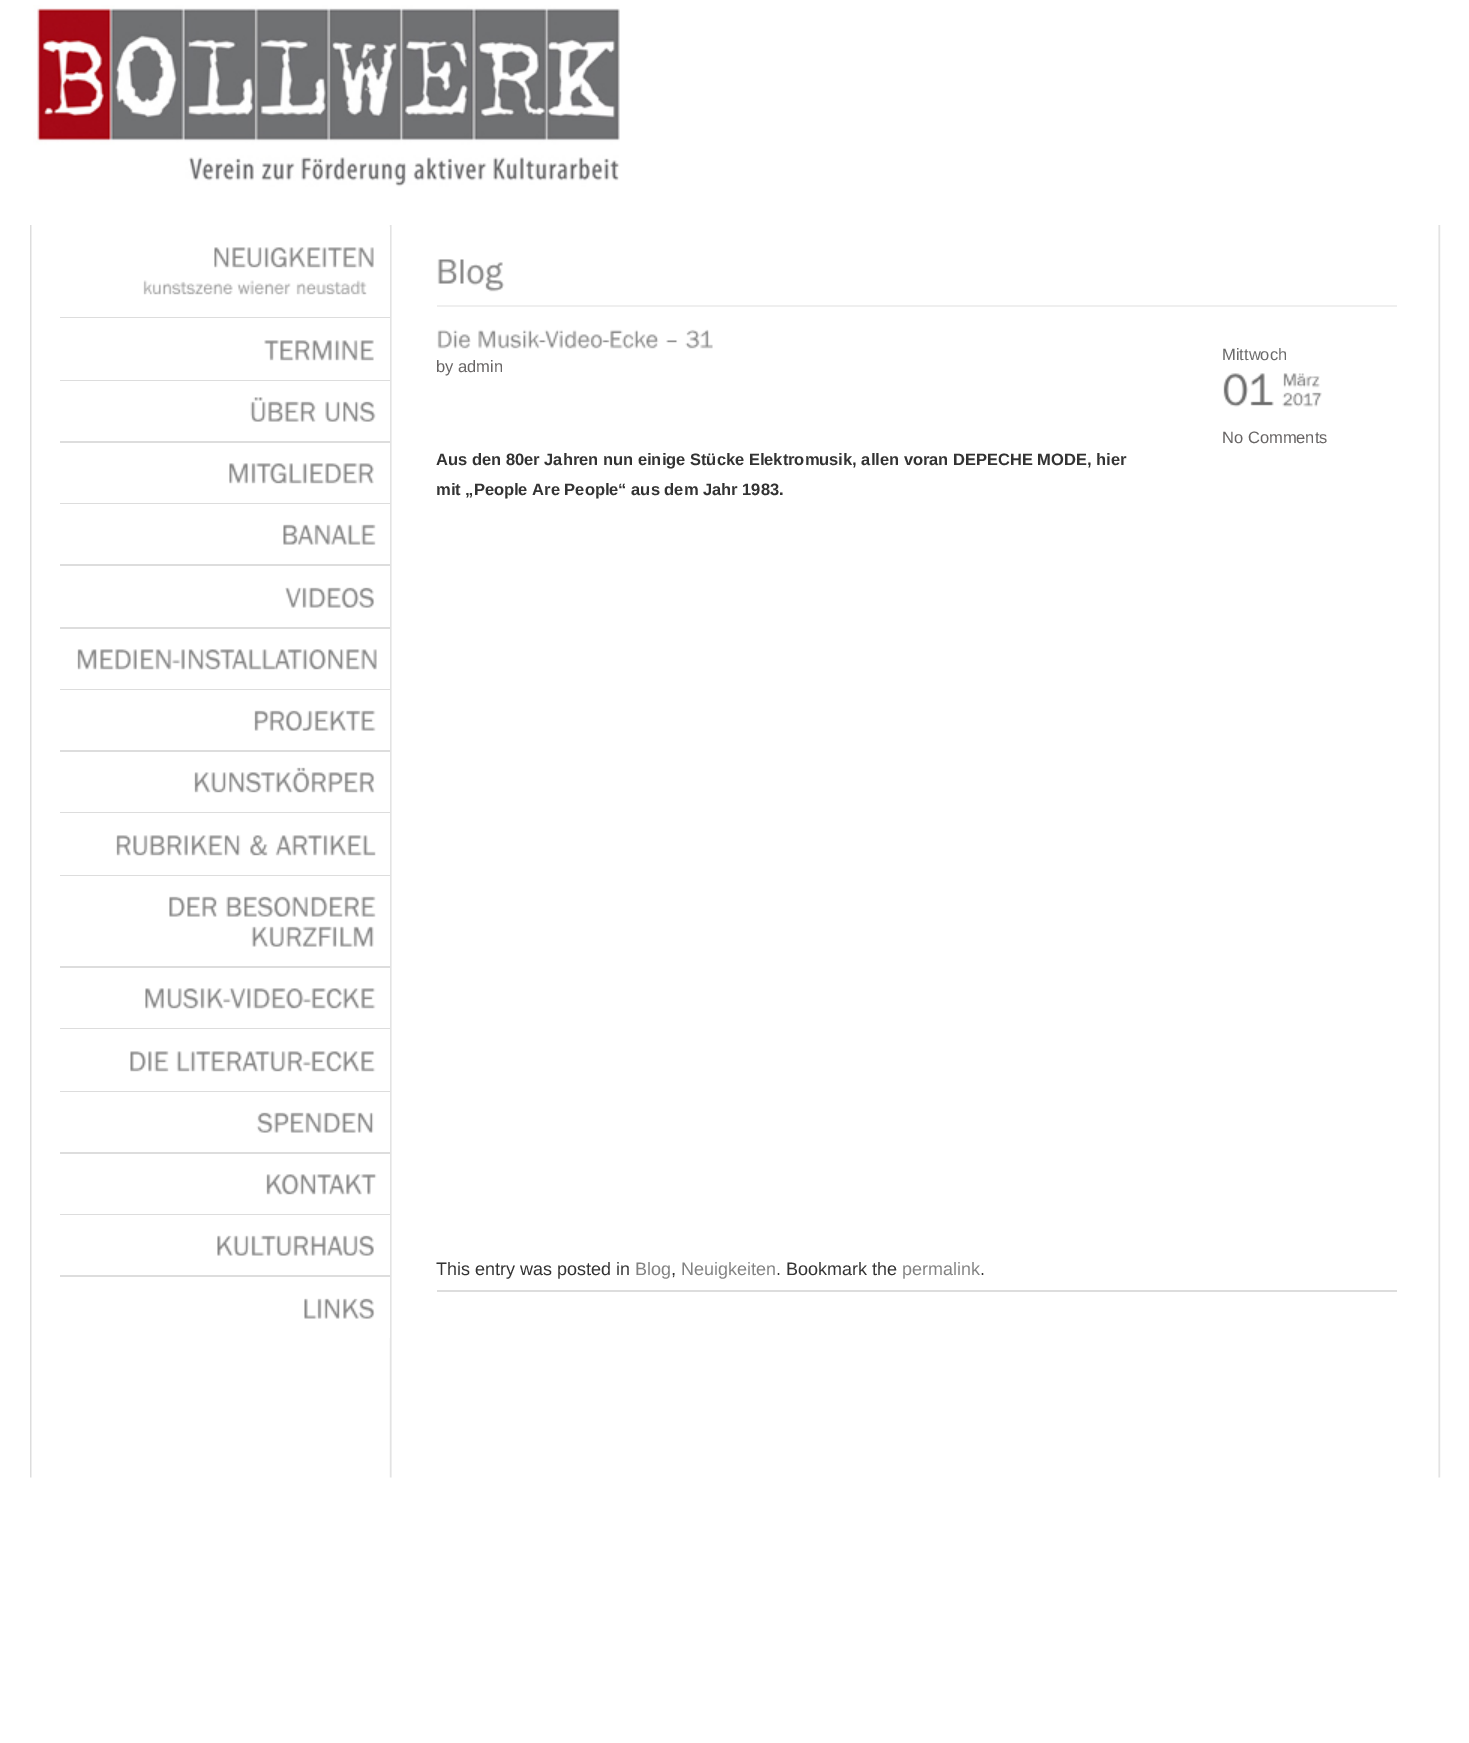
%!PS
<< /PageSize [1469 1743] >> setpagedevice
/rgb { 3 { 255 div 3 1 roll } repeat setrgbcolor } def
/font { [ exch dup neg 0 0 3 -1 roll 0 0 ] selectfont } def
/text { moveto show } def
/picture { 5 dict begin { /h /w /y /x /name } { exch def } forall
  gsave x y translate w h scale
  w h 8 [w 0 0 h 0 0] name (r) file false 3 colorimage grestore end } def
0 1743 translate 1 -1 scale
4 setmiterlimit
255 255 255 rgb
0 0 1469 1743 rectfill
(img_01.rgb) 33 5 587 182 picture
(img_02.rgb) 30 225 1411 1253 picture
221 221 221 rgb
60 317 330 960 rectfill
255 255 255 rgb
389 227 1 90 rectfill
(img_03.rgb) 214 247 160 21 picture
(img_04.rgb) 143 280 90 15 picture
(img_05.rgb) 237 280 54 15 picture
(img_06.rgb) 296 280 71 15 picture
60 318 330 62 rectfill
(img_07.rgb) 264 340 110 21 picture
60 381 330 60 rectfill
(img_08.rgb) 250 397 66 25 picture
(img_09.rgb) 325 401 51 21 picture
60 443 330 60 rectfill
(img_10.rgb) 229 463 145 21 picture
60 504 330 60 rectfill
(img_11.rgb) 283 524 93 21 picture
60 566 330 61 rectfill
(img_12.rgb) 285 587 90 21 picture
60 629 330 60 rectfill
(img_13.rgb) 77 649 300 21 picture
60 690 330 60 rectfill
(img_14.rgb) 254 710 122 21 picture
60 752 330 60 rectfill
(img_15.rgb) 194 767 181 26 picture
60 813 330 62 rectfill
(img_16.rgb) 116 835 125 21 picture
(img_17.rgb) 250 835 18 21 picture
(img_18.rgb) 275 835 101 21 picture
60 876 330 90 rectfill
(img_19.rgb) 169 896 49 21 picture
(img_20.rgb) 226 896 150 21 picture
(img_21.rgb) 251 926 123 21 picture
60 968 330 60 rectfill
(img_22.rgb) 145 988 231 21 picture
60 1029 330 62 rectfill
(img_23.rgb) 130 1051 39 21 picture
(img_24.rgb) 176 1051 200 21 picture
60 1092 330 60 rectfill
(img_25.rgb) 256 1112 118 21 picture
60 1154 330 60 rectfill
(img_26.rgb) 266 1174 111 21 picture
60 1215 330 60 rectfill
(img_27.rgb) 217 1235 157 21 picture
389 1277 1 61 rectfill
(img_28.rgb) 304 1298 71 21 picture
239 239 239 rgb
437 305 960 2 rectfill
(img_29.rgb) 437 259 68 33 picture
221 221 221 rgb
437 1290 960 2 rectfill
(img_30.rgb) 437 329 34 20 picture
(img_31.rgb) 478 329 181 20 picture
(img_32.rgb) 666 340 12 3 picture
(img_33.rgb) 685 329 28 20 picture
(img_34.rgb) 1223 373 51 34 picture
(img_35.rgb) 1283 373 37 15 picture
(img_36.rgb) 1282 392 40 15 picture
/LiberationSans-Regular 16.5 font
103 100 100 rgb
(by admin) 436 372 text
/LiberationSans-Bold 16.5 font
51 51 51 rgb
(Aus den 80er Jahren nun einige Stücke Elektromusik, allen voran DEPECHE MODE, hier) 436 465 text
(mit „People Are People“ aus dem Jahr 1983.) 436 495 text
/LiberationSans-Regular 16.5 font
107 107 107 rgb
(Mittwoch) 1222 360 text
103 100 100 rgb
(No Comments) 1222 443 text
/LiberationSans-Regular 18 font
51 51 51 rgb
(This entry was posted in) 436 1275 text
130 130 130 rgb
(Blog) 635 1275 text
51 51 51 rgb
(,) 671 1275 text
130 130 130 rgb
(Neuigkeiten) 681 1275 text
51 51 51 rgb
(. Bookmark the) 776 1275 text
130 130 130 rgb
(permalink) 902 1275 text
51 51 51 rgb
(.) 980 1275 text
showpage
